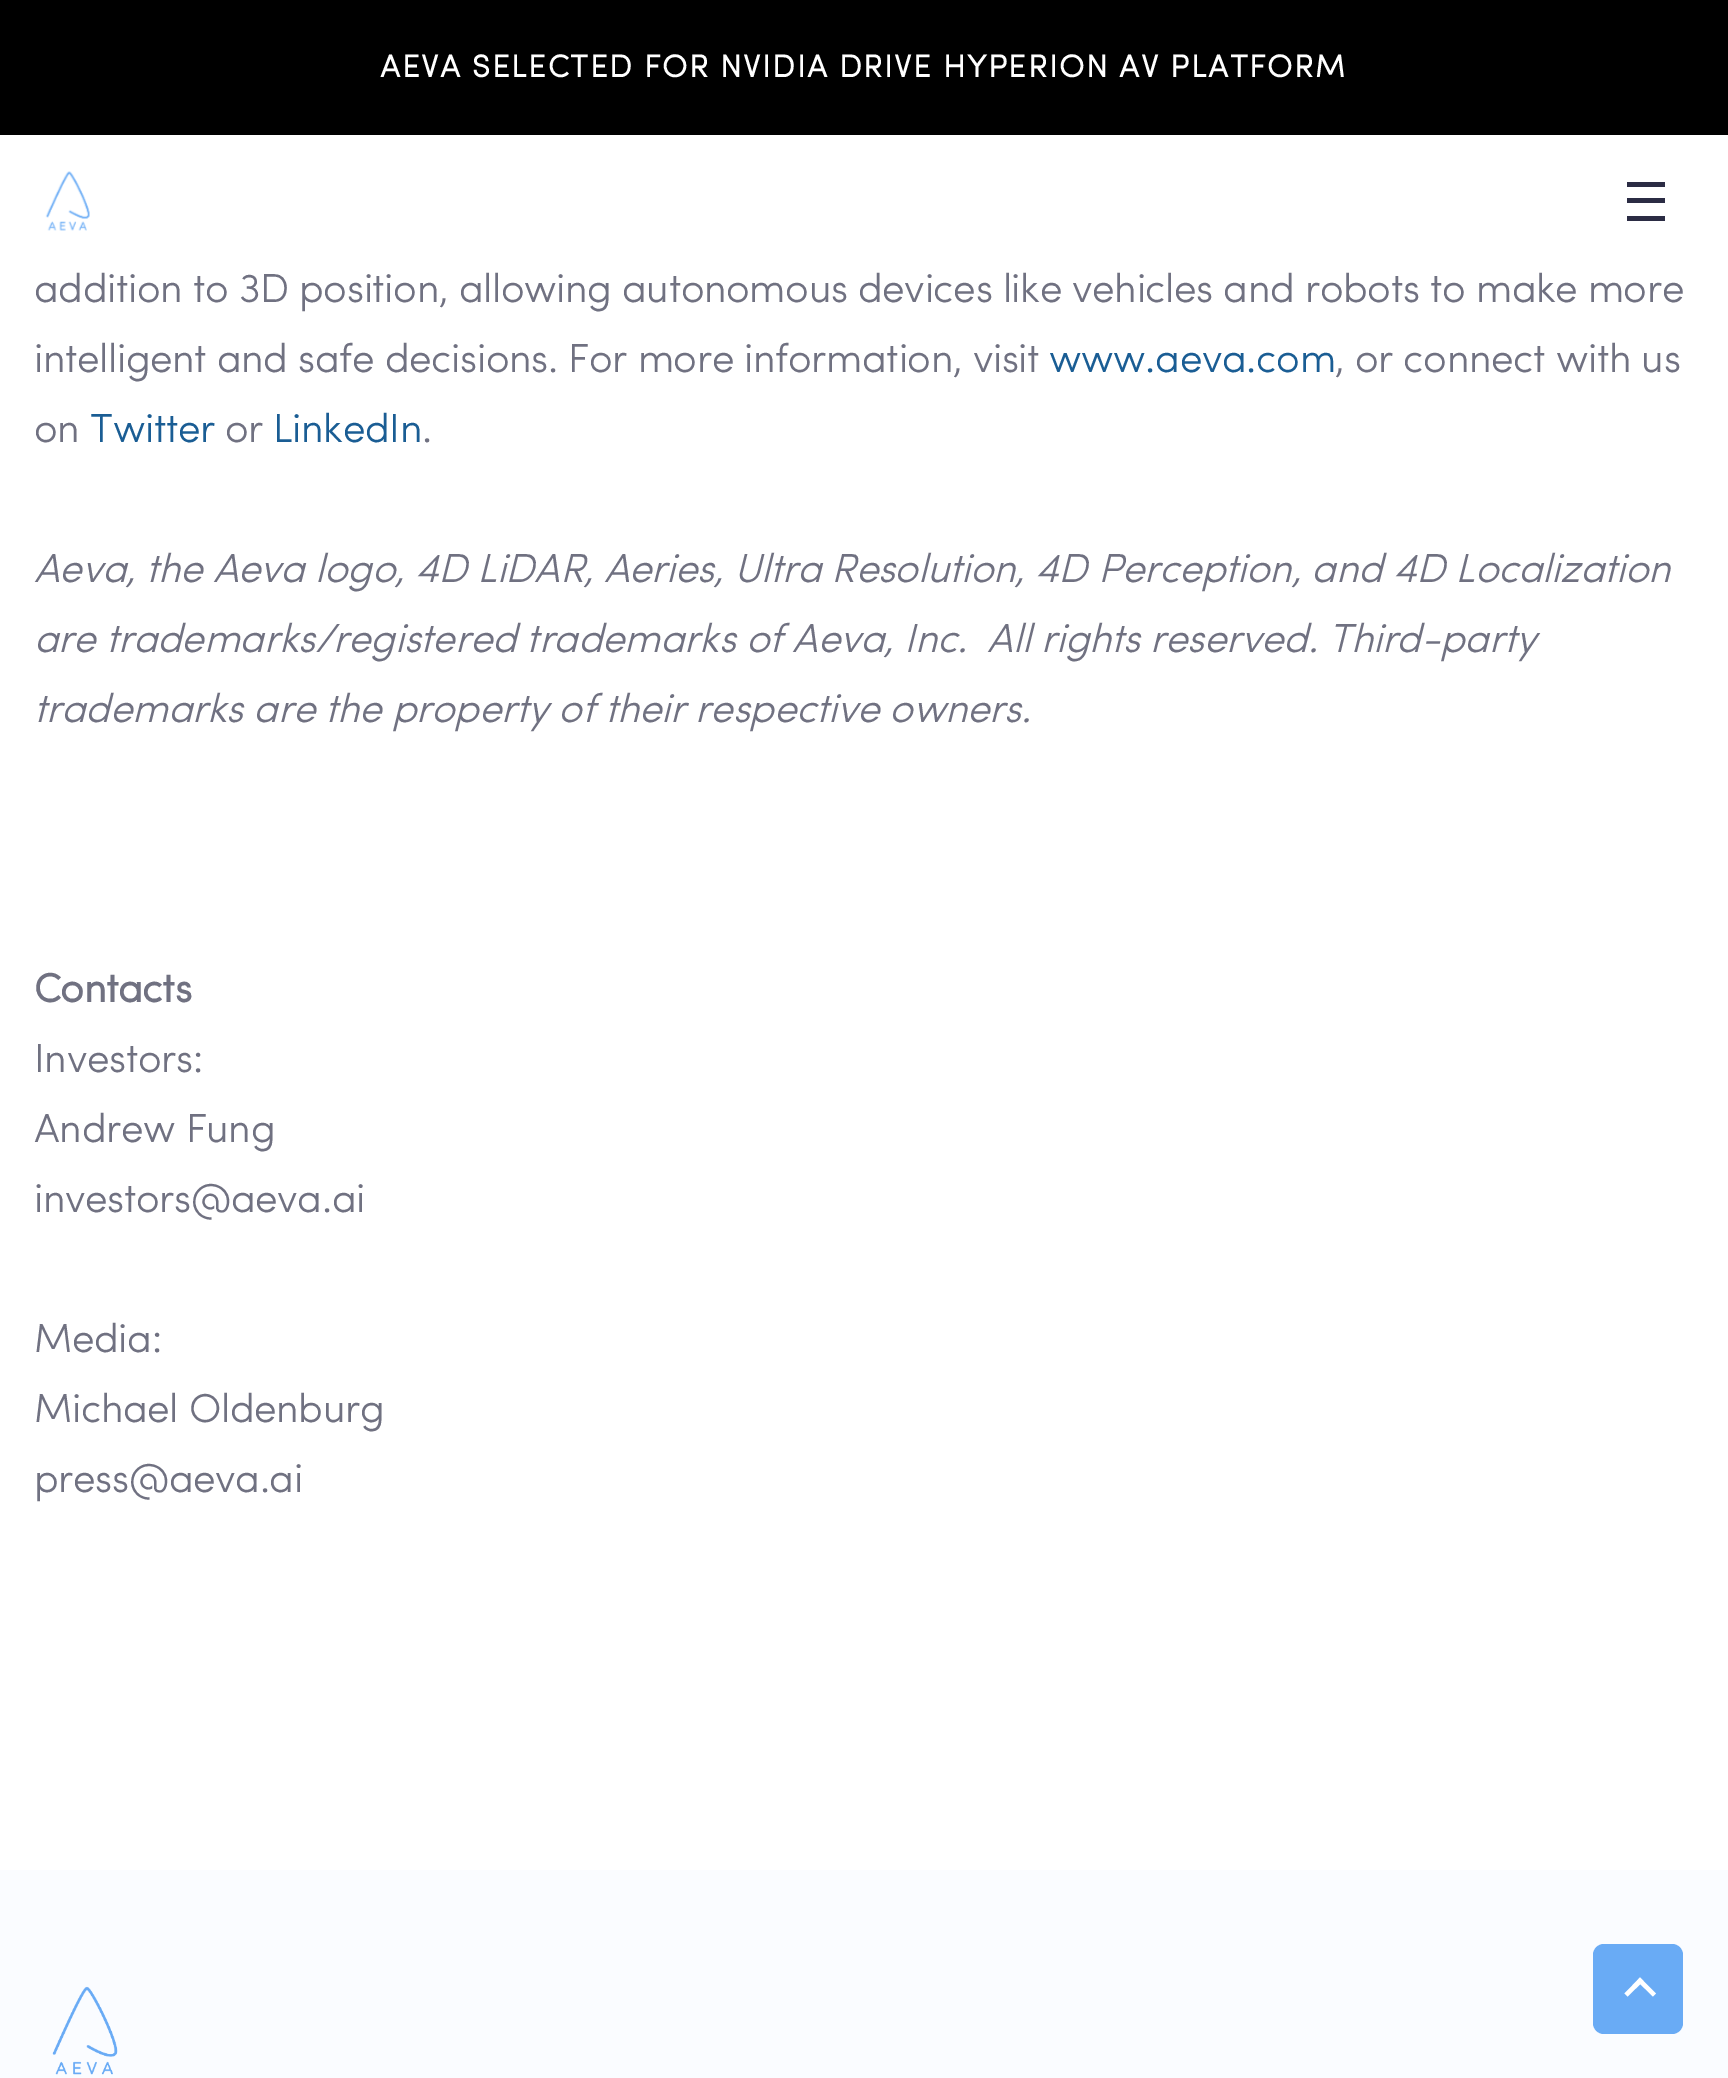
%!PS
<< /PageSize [1728 2078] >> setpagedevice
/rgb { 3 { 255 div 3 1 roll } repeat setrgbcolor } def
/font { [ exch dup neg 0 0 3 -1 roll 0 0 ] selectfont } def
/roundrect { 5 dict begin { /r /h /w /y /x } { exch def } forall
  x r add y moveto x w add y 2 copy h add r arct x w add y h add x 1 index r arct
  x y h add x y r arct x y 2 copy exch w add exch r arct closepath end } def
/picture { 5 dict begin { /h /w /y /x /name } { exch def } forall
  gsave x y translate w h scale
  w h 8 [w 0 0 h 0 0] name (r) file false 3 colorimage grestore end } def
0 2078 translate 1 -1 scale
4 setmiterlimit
255 255 255 rgb
0 0 1728 2078 rectfill
0 0 0 rgb
0 0 1728 135 rectfill
(img_01.rgb) 45 171 45 60 picture
43 44 68 rgb
1627 182 38 5 rectfill
1627 198 38 5 rectfill
1627 216 38 5 rectfill
250 252 255 rgb
0 1870 1728 208 rectfill
(img_02.rgb) 52 1986 66 89 picture
105 171 245 rgb
1593 1944 90 90 11 roundrect fill
255 255 255 rgb
1624.5 1993.5 moveto 15.5 -16 rlineto 3.5 3.5 rlineto -16 15.5 rlineto closepath fill
1637 1981 moveto 3 -3.5 rlineto 16 16 rlineto -3 3 rlineto closepath fill
/Sofia-Bold 31.5 font
380 77 moveto 1.73 0 (AEVA SELECTED FOR NVIDIA DRIVE HYPERION AV PLATFORM) ashow
/Sofia-Light 40.5 font
112 113 129 rgb
34 302 moveto -0.4 0 (addition to 3D position, allowing autonomous devices like vehicles and robots to make more) ashow
34 372 moveto -0.4 0 (intelligent and safe decisions. For more information, visit) ashow
26 93 148 rgb
1049 372 moveto -0.4 0 (www.aeva.com) ashow
112 113 129 rgb
1335 372 moveto -0.4 0 (, or connect with us) ashow
34 442 moveto -0.4 0 (on) ashow
26 93 148 rgb
90 442 moveto -0.4 0 (Twitter) ashow
112 113 129 rgb
225 442 moveto -0.4 0 (or) ashow
26 93 148 rgb
273 442 moveto -0.4 0 (LinkedIn) ashow
112 113 129 rgb
422 442 moveto -0.4 0 (.) ashow
/Sofia-LightItalic 40.5 font
34 582 moveto -0.4 0 (Aeva, the Aeva logo, 4D LiDAR, Aeries, Ultra Resolution, 4D Perception, and 4D Localization) ashow
34 652 moveto -0.4 0 (are trademarks/registered trademarks of Aeva, Inc.  All rights reserved. Third-party) ashow
34 722 moveto -0.4 0 (trademarks are the property of their respective owners.) ashow
/Sofia-Bold 40.5 font
34 1002 moveto -0.4 0 (Contacts) ashow
/Sofia-Light 40.5 font
34 1072 moveto -0.4 0 (Investors:) ashow
34 1142 moveto -0.4 0 (Andrew Fung) ashow
34 1212 moveto -0.4 0 (investors@aeva.ai) ashow
34 1352 moveto -0.4 0 (Media:) ashow
34 1422 moveto -0.4 0 (Michael Oldenburg) ashow
34 1492 moveto -0.4 0 (press@aeva.ai) ashow
showpage
